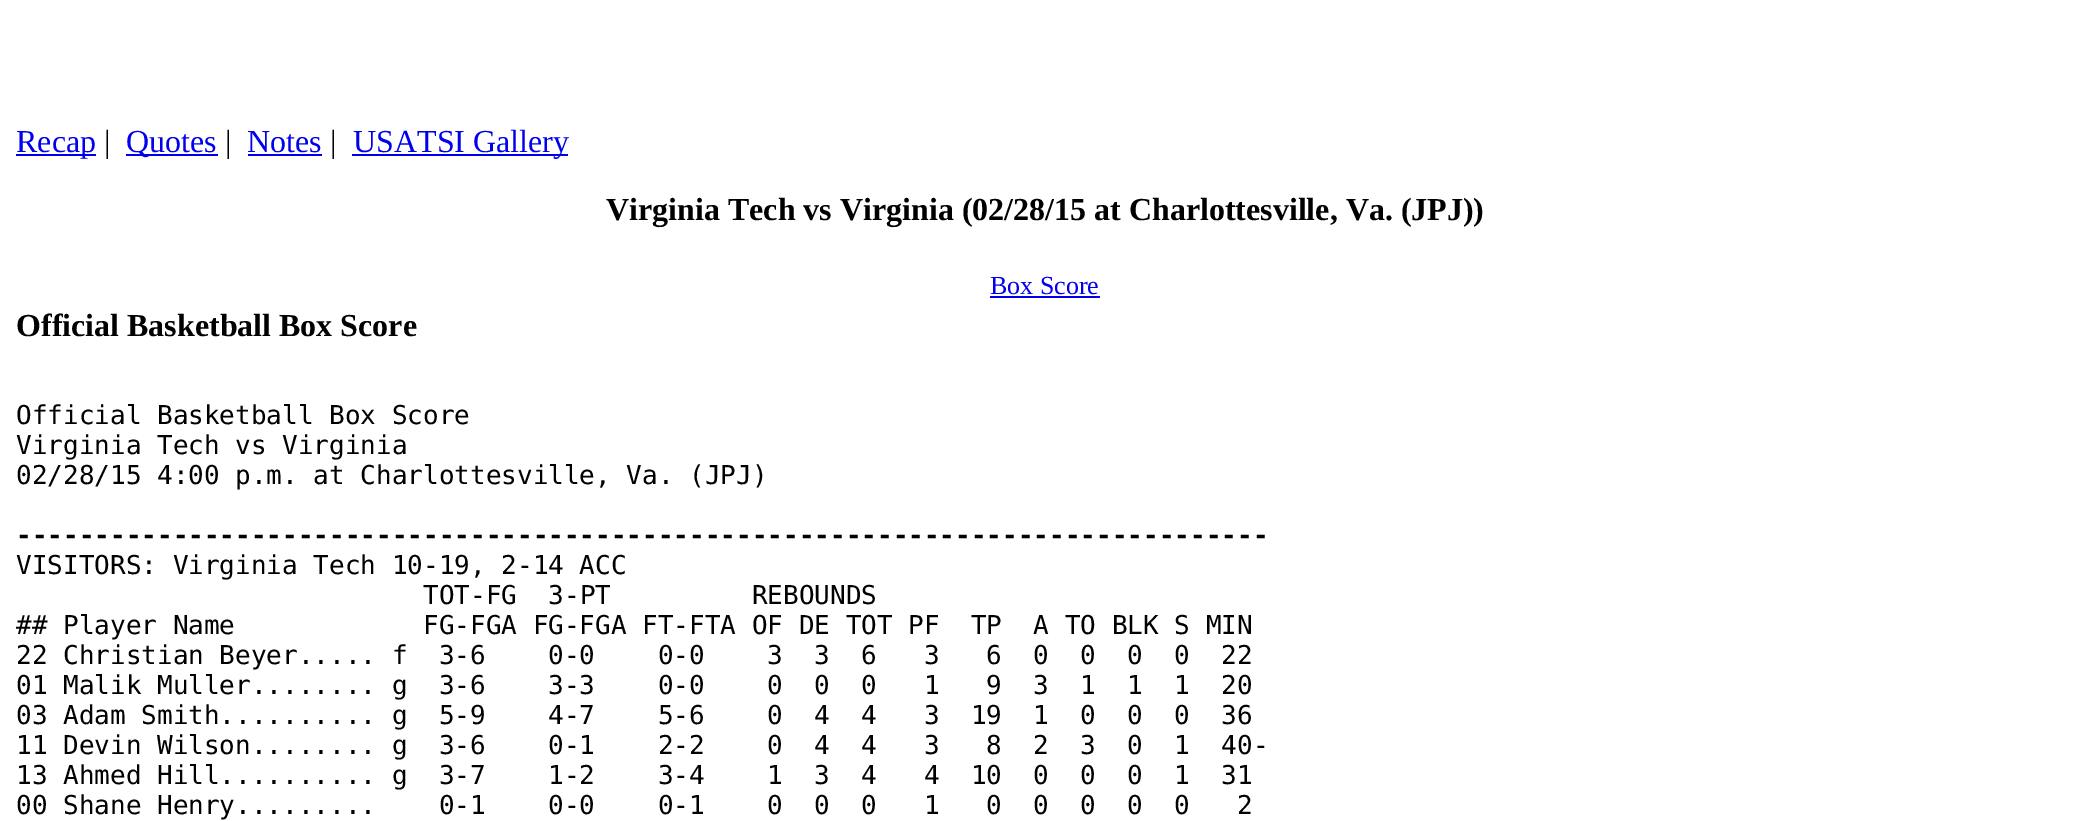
%!PS
<< /PageSize [2090 821] >> setpagedevice
/rgb { 3 { 255 div 3 1 roll } repeat setrgbcolor } def
/font { [ exch dup neg 0 0 3 -1 roll 0 0 ] selectfont } def
/text { moveto show } def
0 821 translate 1 -1 scale
4 setmiterlimit
255 255 255 rgb
0 0 2090 821 rectfill
0 0 238 rgb
16 154 80 2 rectfill
126 154 92 2 rectfill
248 154 74 2 rectfill
352 154 216 2 rectfill
990 296 110 2 rectfill
/LiberationSerif-Regular 32 font
(Recap) 16 152 text
0 0 0 rgb
(|) 104 152 text
0 0 238 rgb
(Quotes) 126 152 text
0 0 0 rgb
(|) 225 152 text
0 0 238 rgb
(Notes) 247 152 text
0 0 0 rgb
(|) 330 152 text
0 0 238 rgb
(USATSI Gallery) 353 152 text
/LiberationSerif-Bold 32 font
0 0 0 rgb
(Virginia Tech vs Virginia \(02/28/15 at Charlottesville, Va. \(JPJ\)\)) 606 220 text
/LiberationSerif-Regular 26 font
0 0 238 rgb
(Box Score) 990 294 text
/LiberationSerif-Bold 32 font
0 0 0 rgb
(Official Basketball Box Score) 16 336 text
/DejaVuSansMono-Regular 26 font
(Official Basketball Box Score) 16 424 text
(Virginia Tech vs Virginia) 16 454 text
(02/28/15 4:00 p.m. at Charlottesville, Va. \(JPJ\)) 16 484 text
/DejaVuSansMono-Bold 26 font
(--------------------------------------------------------------------------------) 16 544 text
/DejaVuSansMono-Regular 26 font
(VISITORS: Virginia Tech 10-19, 2-14 ACC) 16 574 text
(TOT-FG  3-PT         REBOUNDS) 423 604 text
(## Player Name            FG-FGA FG-FGA FT-FTA OF DE TOT PF  TP  A TO BLK S MIN) 16 634 text
(22 Christian Beyer..... f  3-6    0-0    0-0    3  3  6   3   6  0  0  0  0  22) 16 664 text
(01 Malik Muller........ g  3-6    3-3    0-0    0  0  0   1   9  3  1  1  1  20) 16 694 text
(03 Adam Smith.......... g  5-9    4-7    5-6    0  4  4   3  19  1  0  0  0  36) 16 724 text
(11 Devin Wilson........ g  3-6    0-1    2-2    0  4  4   3   8  2  3  0  1  40-) 16 754 text
(13 Ahmed Hill.......... g  3-7    1-2    3-4    1  3  4   4  10  0  0  0  1  31) 16 784 text
(00 Shane Henry.........    0-1    0-0    0-1    0  0  0   1   0  0  0  0  0   2) 16 814 text
showpage
